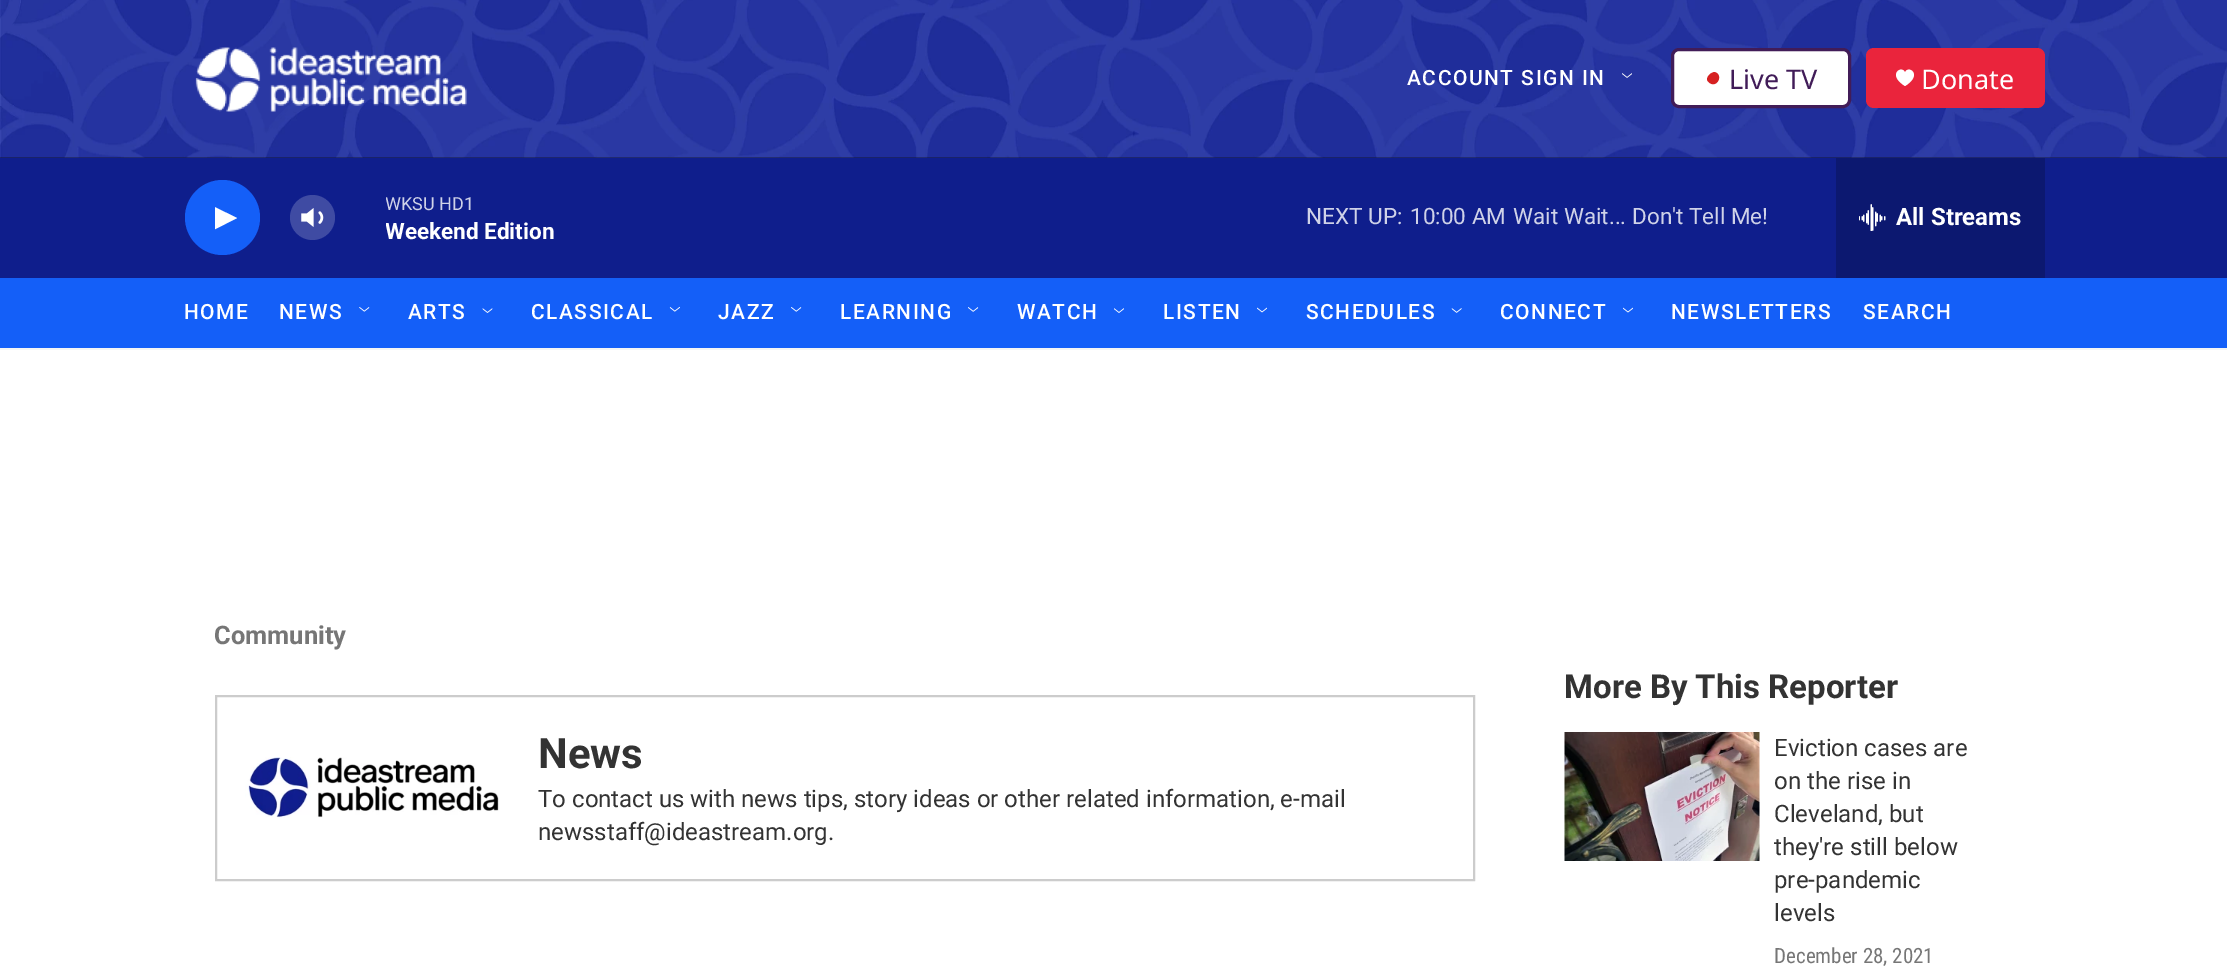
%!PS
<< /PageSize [2227 973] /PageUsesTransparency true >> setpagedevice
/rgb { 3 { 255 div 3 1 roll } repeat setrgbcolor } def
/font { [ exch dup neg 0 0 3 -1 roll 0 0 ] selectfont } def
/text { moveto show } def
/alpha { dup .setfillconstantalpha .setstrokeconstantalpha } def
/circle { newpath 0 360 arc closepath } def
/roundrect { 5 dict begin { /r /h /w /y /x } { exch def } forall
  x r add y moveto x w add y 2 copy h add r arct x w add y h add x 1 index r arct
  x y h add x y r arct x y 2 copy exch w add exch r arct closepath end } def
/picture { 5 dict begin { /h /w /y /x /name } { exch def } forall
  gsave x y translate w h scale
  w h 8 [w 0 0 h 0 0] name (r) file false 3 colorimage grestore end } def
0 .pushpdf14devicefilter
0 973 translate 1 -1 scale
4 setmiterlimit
255 255 255 rgb
0 0 2227 973 rectfill
18 18 18 rgb
0 157 2227 1 rectfill
245 245 245 rgb
0 348 2227 2 rectfill
(img_01.rgb) 0 0 2227 158 picture
(img_02.rgb) 195 47 272 65 picture
(img_03.rgb) 1622 73 10 5 picture
255 255 255 rgb
1672.5 49.5 177 57 6.5 roundrect gsave fill grestore
65 28 88 rgb
3 setlinewidth
stroke
214 32 33 rgb
1714.5 72 moveto 9.5 2.5 2.5 17 -5.5 10.5 rcurveto -0.5 -0.5 -2 -2 -2 -3 rcurveto 0 -3.5 4 -7 7.5 -7.5 rcurveto closepath fill
234 36 60 rgb
1866 48 179 60 8 roundrect fill
255 255 255 rgb
1905 72.5 moveto -3 -8 -18.5 2 0 13.5 rcurveto 18.5 -11.5 3 -21.5 0 -13.5 rcurveto closepath fill
15 30 140 rgb
0 158 2227 120 rectfill
20 95 248 rgb
222.5 217.5 37.5 circle fill
gsave
215 204 22 29 rectclip
255 255 255 rgb
214.5 207 moveto 22.5 11 rlineto -22.5 11.5 rlineto closepath fill
grestore
(img_04.rgb) 301 208 23 19 picture
0.2 alpha
255 255 255 rgb
312.5 217.5 22.5 circle fill
1 alpha
12 24 112 rgb
1836 158 209 120 rectfill
(img_05.rgb) 1859 204 27 27 picture
20 95 248 rgb
0 278 2227 70 rectfill
(img_06.rgb) 359 307 11 5 picture
(img_07.rgb) 482 308 11 5 picture
(img_08.rgb) 669 306 11 6 picture
(img_09.rgb) 791 307 11 5 picture
(img_10.rgb) 968 307 11 5 picture
(img_11.rgb) 1114 308 10 5 picture
(img_12.rgb) 1257 307 10 6 picture
(img_13.rgb) 1451 308 11 5 picture
(img_14.rgb) 1623 307 10 6 picture
204 204 204 rgb
2 setlinewidth
216 696 1258 184 rectstroke
(img_15.rgb) 245 757 254 61 picture
(img_16.rgb) 1564 732 196 129 picture
/Roboto-Medium 21 font
255 255 255 rgb
1407 85 moveto 1.5 0 (ACCOUNT SIGN IN) ashow
/NotoSans-Regular 27 font
65 28 88 rgb
(Live TV) 1729 89 text
255 255 255 rgb
(Donate) 1921 89 text
gsave
386 191 168 27 rectclip
/Roboto-Regular 18 font
207 210 232 rgb
(WKSU HD1) 385 210 text
grestore
gsave
386 218 168 27 rectclip
/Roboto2-Bold 22.5 font
(Weekend Edition) 385 239 text
grestore
/Roboto-Regular 22.5 font
207 210 232 rgb
(NEXT UP:) 1306 224 text
(10:00 AM) 1410 224 text
(Wait Wait... Don't Tell Me!) 1513 224 text
/Roboto2-Bold 24 font
255 255 255 rgb
(All Streams) 1896 225 text
/Roboto-Medium 21 font
184 319 moveto 1.5 0 (HOME) ashow
279 319 moveto 1.5 0 (NEWS) ashow
408 319 moveto 1.5 0 (ARTS) ashow
531 319 moveto 1.5 0 (CLASSICAL) ashow
718 319 moveto 1.5 0 (JAZZ) ashow
840 319 moveto 1.5 0 (LEARNING) ashow
1017 319 moveto 1.5 0 (WATCH) ashow
1163 319 moveto 1.5 0 (LISTEN) ashow
1306 319 moveto 1.5 0 (SCHEDULES) ashow
1500 319 moveto 1.5 0 (CONNECT) ashow
1671 319 moveto 1.5 0 (NEWSLETTERS) ashow
1863 319 moveto 1.5 0 (SEARCH) ashow
/Roboto-Bold 25.5 font
118 118 118 rgb
(Community) 214 644 text
/Roboto2-Bold 42 font
51 51 51 rgb
(News) 538 768 text
/Roboto-Regular 24 font
(To contact us with news tips, story ideas or other related information, e-mail) 538 807 text
(newsstaff@ideastream.org.) 538 840 text
/Roboto-Bold 33 font
(More By This Reporter) 1564 698 text
/Roboto-Regular 24 font
(Eviction cases are) 1774 756 text
(on the rise in) 1774 789 text
(Cleveland, but) 1774 822 text
(they're still below) 1774 855 text
(pre-pandemic) 1774 888 text
(levels) 1774 921 text
/RobotoCondensed-Regular 21 font
118 118 118 rgb
(December 28, 2021) 1774 963 text
.poppdf14devicefilter showpage
